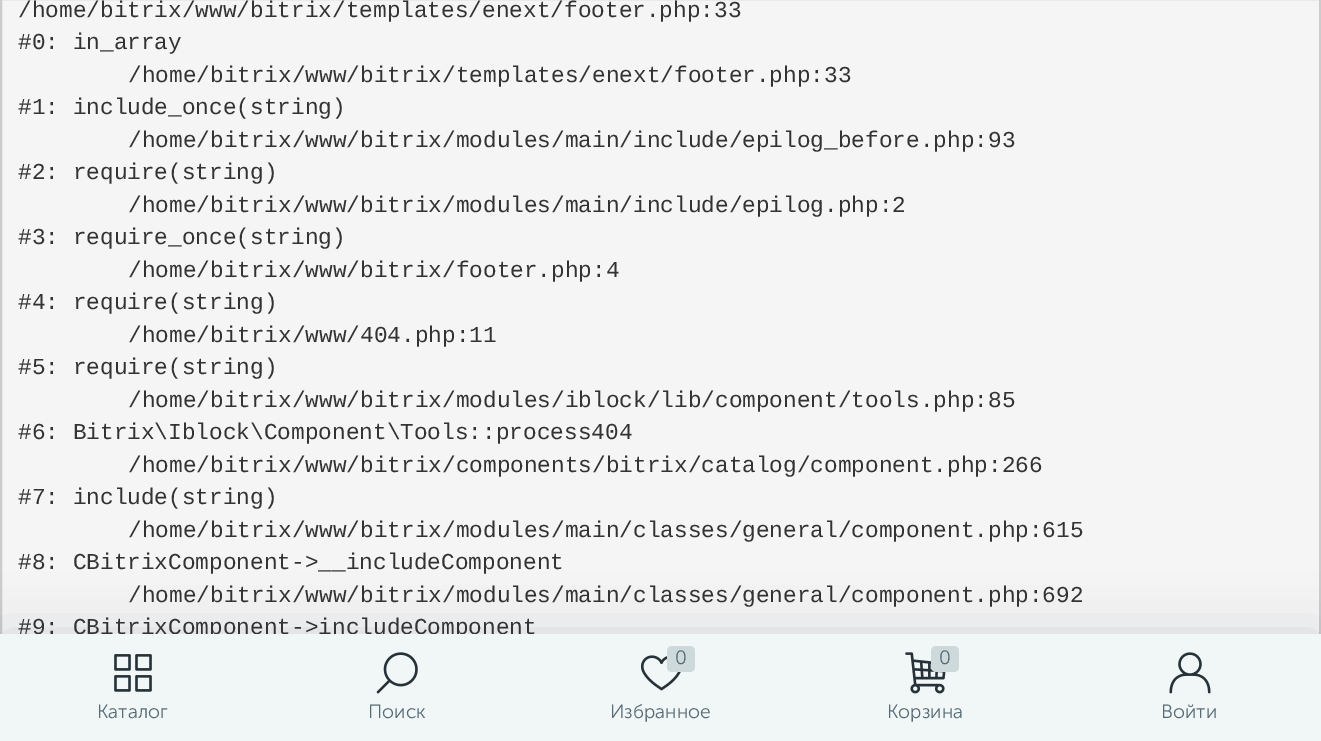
%!PS
<< /PageSize [1321 741] /PageUsesTransparency true >> setpagedevice
/rgb { 3 { 255 div 3 1 roll } repeat setrgbcolor } def
/font { [ exch dup neg 0 0 3 -1 roll 0 0 ] selectfont } def
/text { moveto show } def
/alpha { dup .setfillconstantalpha .setstrokeconstantalpha } def
/roundrect { 5 dict begin { /r /h /w /y /x } { exch def } forall
  x r add y moveto x w add y 2 copy h add r arct x w add y h add x 1 index r arct
  x y h add x y r arct x y 2 copy exch w add exch r arct closepath end } def
/shadow { 12 dict begin { /a /b /q /h /w /y /x } { exch def } forall gsave /was 0 def
  9 -2 -9 { dup b mul 4 div /e exch def 1 sub .425 mul 2.718 exch exp 1 add a .99 .min exch div /now exch def
    1 1 now sub 1 was sub div sub alpha /was now def
    w h .min e 2 mul add 0 gt { x e sub y e sub w e 2 mul add h e 2 mul add
      q e add b .6 mul add w h .min 2 div e add .min 0 .max roundrect fill } if } for grestore end } def
/picture { 5 dict begin { /h /w /y /x /name } { exch def } forall
  gsave x y translate w h scale
  w h 8 [w 0 0 h 0 0] name (r) file false 3 colorimage grestore end } def
0 .pushpdf14devicefilter
0 741 translate 1 -1 scale
4 setmiterlimit
245 245 245 rgb
0 0 1321 741 rectfill
204 204 204 rgb
2 setlinewidth
1 -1 1319 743 rectstroke
38 50 56 rgb
0 634 1321 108 0 28 0.16 shadow
/LiberationMono-Regular 22.75 font
51 51 51 rgb
(/home/bitrix/www/bitrix/templates/enext/footer.php:33) 18 17 text
(#0: in_array) 18 49 text
(/home/bitrix/www/bitrix/templates/enext/footer.php:33) 128 82 text
(#1: include_once\(string\)) 18 114 text
(/home/bitrix/www/bitrix/modules/main/include/epilog_before.php:93) 128 147 text
(#2: require\(string\)) 18 179 text
(/home/bitrix/www/bitrix/modules/main/include/epilog.php:2) 128 212 text
(#3: require_once\(string\)) 18 244 text
(/home/bitrix/www/bitrix/footer.php:4) 128 277 text
(#4: require\(string\)) 18 309 text
(/home/bitrix/www/404.php:11) 128 342 text
(#5: require\(string\)) 18 374 text
(/home/bitrix/www/bitrix/modules/iblock/lib/component/tools.php:85) 128 407 text
(#6: Bitrix\\Iblock\\Component\\Tools::process404) 18 439 text
(/home/bitrix/www/bitrix/components/bitrix/catalog/component.php:266) 128 472 text
(#7: include\(string\)) 18 504 text
(/home/bitrix/www/bitrix/modules/main/classes/general/component.php:615) 128 537 text
(#8: CBitrixComponent->__includeComponent) 18 569 text
(/home/bitrix/www/bitrix/modules/main/classes/general/component.php:692) 128 602 text
(#9: CBitrixComponent->includeComponent) 18 634 text
241 246 247 rgb
0 634 1321 107 rectfill
(img_01.rgb) 114 654 38 38 picture
/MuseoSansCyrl-Light 19.25 font
86 107 117 rgb
(Каталог) 97 718 text
(img_02.rgb) 376 652 42 42 picture
(Поиск) 368 718 text
(img_03.rgb) 640 655 41 36 picture
206 217 219 rgb
667 646 28 26 5 roundrect fill
86 107 117 rgb
(0) 675 664 text
(Избранное) 610 718 text
(img_04.rgb) 905 652 41 42 picture
206 217 219 rgb
931 646 28 26 5 roundrect fill
86 107 117 rgb
(0) 939 664 text
(Корзина) 887 718 text
(img_05.rgb) 1169 652 42 42 picture
(Войти) 1161 718 text
.poppdf14devicefilter showpage
